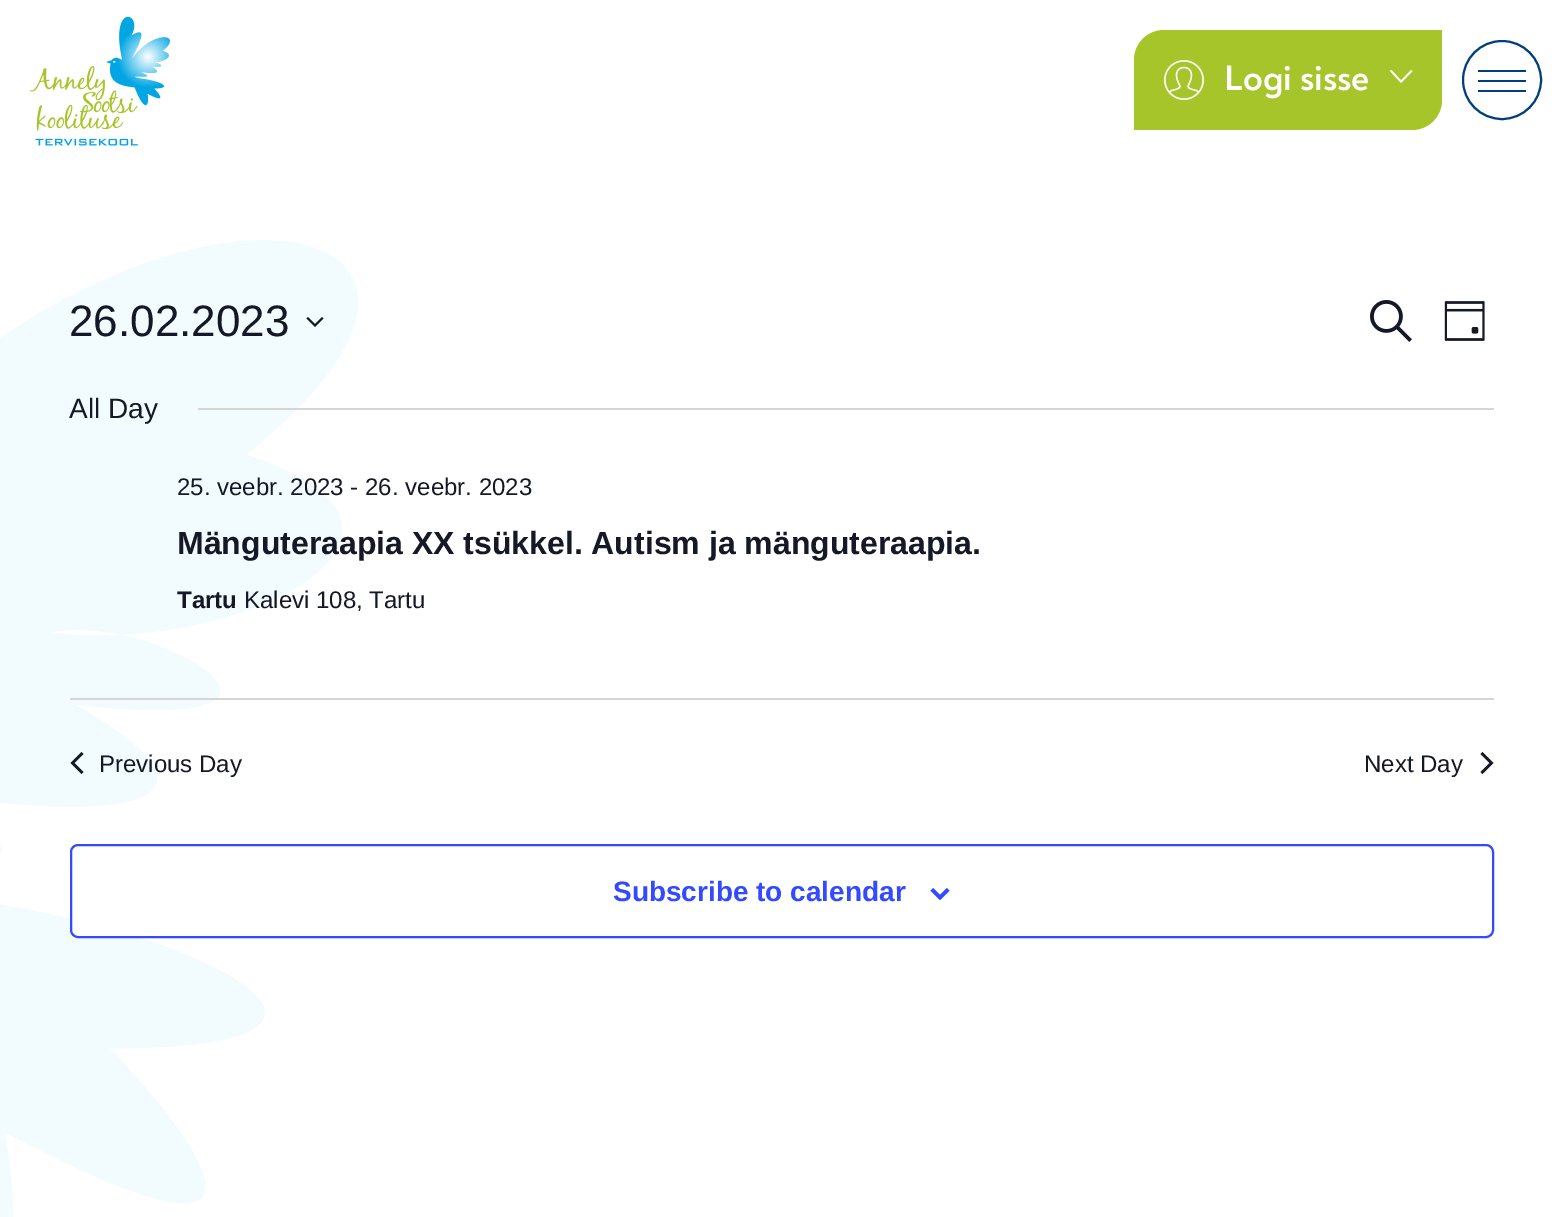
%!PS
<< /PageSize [1561 1217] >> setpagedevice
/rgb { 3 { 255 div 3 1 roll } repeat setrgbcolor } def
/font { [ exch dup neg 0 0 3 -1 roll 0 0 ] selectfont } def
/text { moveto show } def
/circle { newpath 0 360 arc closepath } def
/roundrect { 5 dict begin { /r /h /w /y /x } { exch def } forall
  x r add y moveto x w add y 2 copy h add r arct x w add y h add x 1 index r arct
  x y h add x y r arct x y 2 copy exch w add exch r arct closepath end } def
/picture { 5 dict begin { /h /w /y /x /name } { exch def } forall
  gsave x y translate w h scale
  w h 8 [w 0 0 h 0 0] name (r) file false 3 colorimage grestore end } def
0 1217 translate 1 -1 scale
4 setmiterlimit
255 255 255 rgb
0 0 1561 1217 rectfill
(img_01.rgb) 30 16 140 130 picture
166 197 42 rgb
1164 30 moveto 278 0 rlineto 0 70 rlineto 0 16.5 -13.5 30 -30 30 rcurveto -278 0 rlineto 0 -70 rlineto 0 -16.5 13.5 -30 30 -30 rcurveto closepath fill
(img_02.rgb) 1164 60 40 40 picture
255 255 255 rgb
1411 70 moveto 1.5 1 rlineto -11.5 12 rlineto -11 -12 rlineto 1.5 -1 rlineto 9.5 10.5 rlineto closepath fill
0 62 126 rgb
2 setlinewidth
1502 80 39 circle stroke
1478 70 48 2 rectfill
1478 80 48 2 rectfill
1478 90 48 2 rectfill
(img_03.rgb) 0 240 358 977 picture
20 24 39 rgb
308 317 moveto 7 7 rlineto 7 -7 rlineto 1.5 1.5 rlineto -8.5 8.5 rlineto -8.5 -8.5 rlineto closepath eofill
(img_04.rgb) 1370 300 42 42 picture
(img_05.rgb) 1444 301 41 40 picture
213 213 213 rgb
198 408 1296 2 rectfill
70 698 1424 2 rectfill
20 24 39 rgb
83.5 772 moveto -2 2 rlineto -11 -11 rlineto 11 -11 rlineto 2 2 rlineto -9 9 rlineto closepath fill
1480.5 754 moveto 2 -2 rlineto 11 11 rlineto -11 11 rlineto -2 -2 rlineto 9 -9 rlineto closepath fill
255 255 255 rgb
71 845 1422 92 7 roundrect gsave fill grestore
51 74 255 rgb
stroke
(img_06.rgb) 930 888 20 12 picture
/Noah-Regular 36 font
255 255 255 rgb
(Logi sisse) 1224 90 text
/LiberationSans-Regular 44 font
20 24 39 rgb
(26.02.2023) 69 336 text
/LiberationSans-Regular 28 font
(All Day) 69 418 text
/LiberationSans-Regular 24 font
(25. veebr. 2023 - 26. veebr. 2023) 177 495 text
/LiberationSans-Bold 32 font
(Mänguteraapia XX tsükkel. Autism ja mänguteraapia.) 177 554 text
/LiberationSans-Bold 24 font
(Tartu) 177 608 text
/LiberationSans-Regular 24 font
(Kalevi 108, Tartu) 244 608 text
(Previous Day) 99 772 text
(Next Day) 1364 772 text
/LiberationSans-Bold 28 font
51 74 255 rgb
(Subscribe to calendar) 613 901 text
showpage
